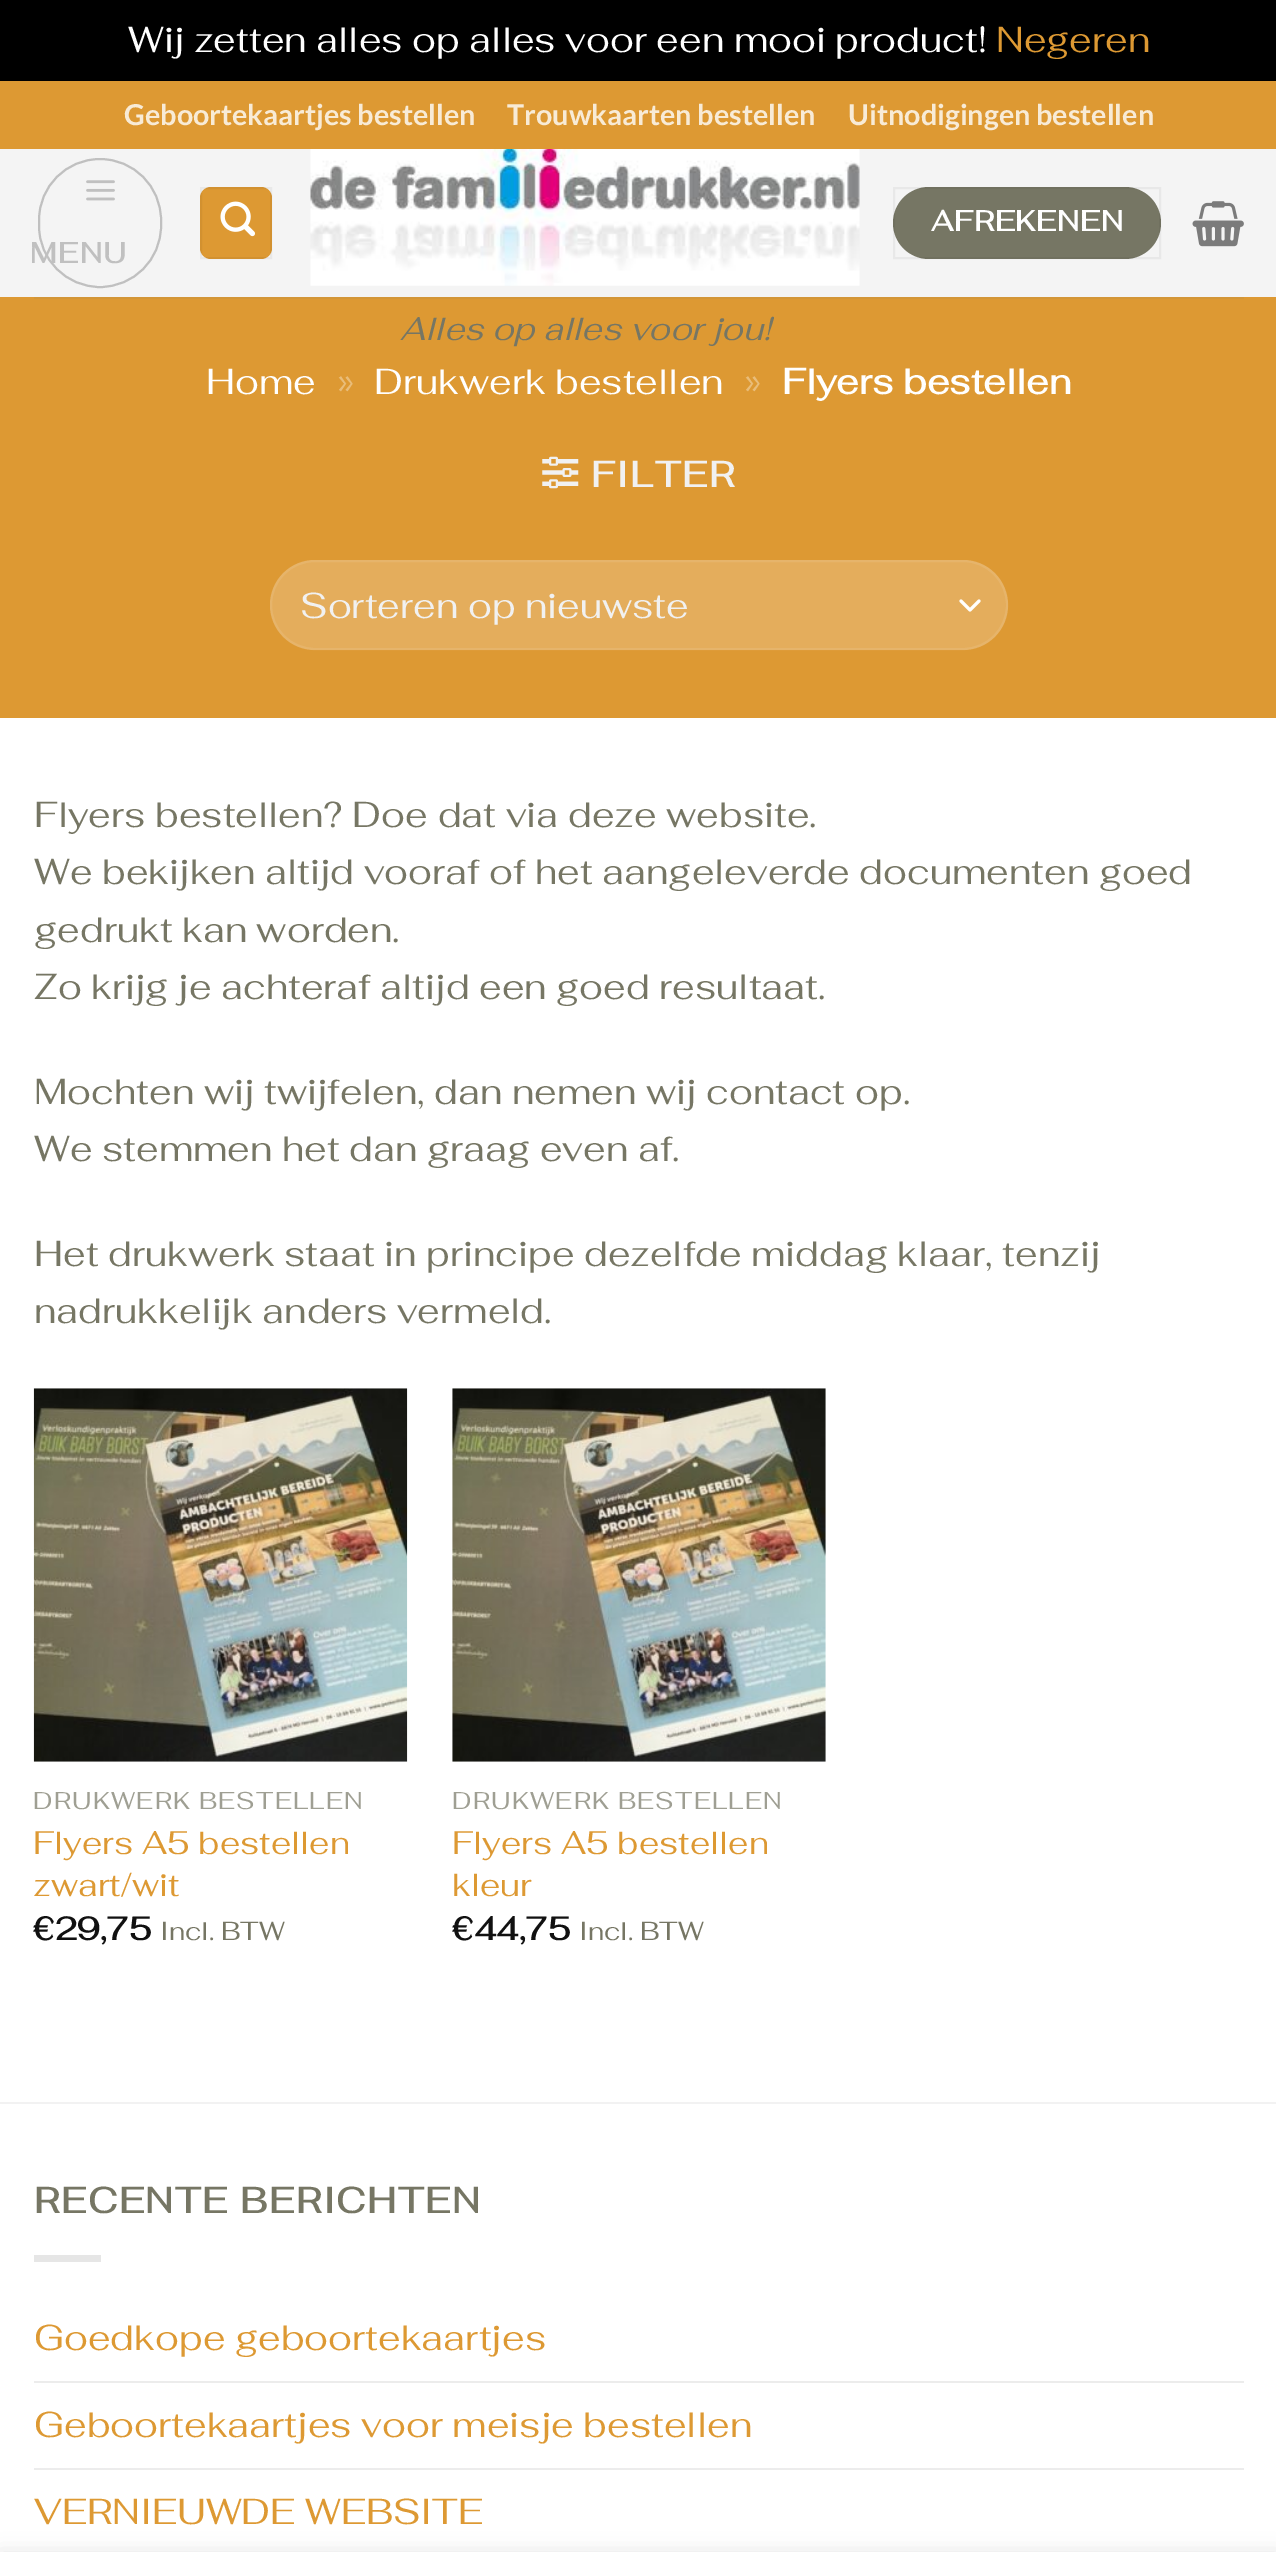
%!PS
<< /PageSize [1276 2552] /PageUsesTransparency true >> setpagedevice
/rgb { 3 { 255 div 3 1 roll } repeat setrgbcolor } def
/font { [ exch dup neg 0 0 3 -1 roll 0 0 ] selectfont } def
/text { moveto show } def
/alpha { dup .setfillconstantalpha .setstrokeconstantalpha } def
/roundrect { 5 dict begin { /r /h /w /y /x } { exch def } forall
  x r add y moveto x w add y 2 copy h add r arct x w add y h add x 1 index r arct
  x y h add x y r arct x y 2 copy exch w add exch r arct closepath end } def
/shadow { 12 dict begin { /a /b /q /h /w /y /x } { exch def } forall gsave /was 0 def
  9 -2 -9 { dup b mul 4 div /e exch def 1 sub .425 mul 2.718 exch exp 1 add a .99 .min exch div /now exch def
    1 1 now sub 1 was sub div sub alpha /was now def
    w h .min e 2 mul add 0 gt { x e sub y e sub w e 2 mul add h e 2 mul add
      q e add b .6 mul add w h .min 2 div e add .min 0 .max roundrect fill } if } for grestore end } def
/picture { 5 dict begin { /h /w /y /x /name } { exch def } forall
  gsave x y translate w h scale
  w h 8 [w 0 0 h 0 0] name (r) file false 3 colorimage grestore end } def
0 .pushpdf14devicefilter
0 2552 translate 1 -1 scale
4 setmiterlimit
0 0 0 rgb
0 0 1276 2552 rectfill
255 255 255 rgb
0 718 1276 1834 rectfill
221 153 51 rgb
0 81 1276 68 rectfill
244 244 244 rgb
0 149 1276 148 rectfill
118 118 100 rgb
893 187 268 72 36 roundrect fill
0.05 alpha
0 0 0 rgb
2 setlinewidth
894 188 266 70 rectstroke
1 alpha
(img_01.rgb) 1192 201 52 46 picture
192 192 192 rgb
39 159 122 128 61 roundrect stroke
(img_02.rgb) 86 180 29 21 picture
221 153 51 rgb
200 187 72 72 11 roundrect fill
0.05 alpha
0 0 0 rgb
201 188 70 70 rectstroke
1 alpha
(img_03.rgb) 220 201 35 36 picture
(img_04.rgb) 310 149 550 137 picture
221 153 51 rgb
0 297 1276 421 rectfill
211 150 56 rgb
34 297 1210 2 rectfill
(img_05.rgb) 542 456 37 33 picture
228 173 92 rgb
270 560 738 90 45 roundrect fill
255 255 255 rgb
3 setlinewidth
1 setlinecap
1 setlinejoin
961 601 moveto 9 9 rlineto 9 -9 rlineto stroke
0.09 alpha
2 setlinewidth
0 setlinecap
0 setlinejoin
271 561 736 88 44 roundrect stroke
1 alpha
(img_06.rgb) 33 1388 375 374 picture
(img_07.rgb) 452 1388 374 374 picture
242 242 242 rgb
0 2102 1276 2 rectfill
230 230 230 rgb
34 2255 67 7 rectfill
236 236 236 rgb
34 2381 1210 2 rectfill
34 2468 1210 2 rectfill
0 0 0 rgb
0 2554 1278 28 0 10 0.14 shadow
/Fahkwang-Regular 36 font
255 255 255 rgb
(Wij zetten alles op alles voor een mooi product!) 128 52 text
221 153 51 rgb
(Negeren) 996 52 text
/Lato-Bold 28.75 font
248 235 214 rgb
(Geboortekaartjes bestellen) 124 125 text
(Trouwkaarten bestellen) 507 125 text
(Uitnodigingen bestellen) 848 125 text
/Fahkwang-Bold 28.75 font
255 255 255 rgb
931 231 moveto 0.75 0 (AFREKENEN) ashow
192 192 192 rgb
30 263 moveto 1.5 0 (MENU) ashow
/Fahkwang-Italic 32.4 font
118 118 100 rgb
(Alles op alles voor jou!) 400 340 text
/Fahkwang-Regular 36 font
255 255 255 rgb
(Home) 206 394 text
233 189 122 rgb
(») 337 394 text
255 255 255 rgb
(Drukwerk bestellen) 374 394 text
233 189 122 rgb
(») 744 394 text
/Fahkwang-Bold 36 font
255 255 255 rgb
(Flyers bestellen) 782 394 text
241 241 241 rgb
591 487 moveto 1.75 0 (FILTER) ashow
/Fahkwang-Regular 36 font
(Sorteren op nieuwste) 300 618 text
118 118 100 rgb
(Flyers bestellen? Doe dat via deze website.) 34 827 text
(We bekijken altijd vooraf of het aangeleverde documenten goed) 34 884 text
(gedrukt kan worden.) 34 942 text
(Zo krijg je achteraf altijd een goed resultaat.) 34 999 text
(Mochten wij twijfelen, dan nemen wij contact op.) 34 1104 text
(We stemmen het dan graag even af.) 34 1161 text
(Het drukwerk staat in principe dezelfde middag klaar, tenzij) 34 1266 text
(nadrukkelijk anders vermeld.) 34 1323 text
/Fahkwang-Regular 24.25 font
159 159 147 rgb
33 1809 moveto 1.25 0 (DRUKWERK BESTELLEN) ashow
/Fahkwang-Regular 32.4 font
221 153 51 rgb
(Flyers A5 bestellen) 33 1854 text
(zwart/wit) 33 1896 text
/Fahkwang-Bold 32.4 font
17 17 17 rgb
(€29,75) 33 1940 text
/Fahkwang-Regular 26 font
118 118 100 rgb
(Incl. BTW) 160 1940 text
/Fahkwang-Regular 24.25 font
159 159 147 rgb
452 1809 moveto 1.25 0 (DRUKWERK BESTELLEN) ashow
/Fahkwang-Regular 32.4 font
221 153 51 rgb
(Flyers A5 bestellen) 452 1854 text
(kleur) 452 1896 text
/Fahkwang-Bold 32.4 font
17 17 17 rgb
(€44,75) 452 1940 text
/Fahkwang-Regular 26 font
118 118 100 rgb
(Incl. BTW) 579 1940 text
/Fahkwang-Bold 36 font
34 2213 moveto 1.75 0 (RECENTE BERICHTEN) ashow
/Fahkwang-Regular 36 font
221 153 51 rgb
(Goedkope geboortekaartjes) 34 2350 text
(Geboortekaartjes voor meisje bestellen) 34 2437 text
(VERNIEUWDE WEBSITE) 34 2524 text
.poppdf14devicefilter showpage
